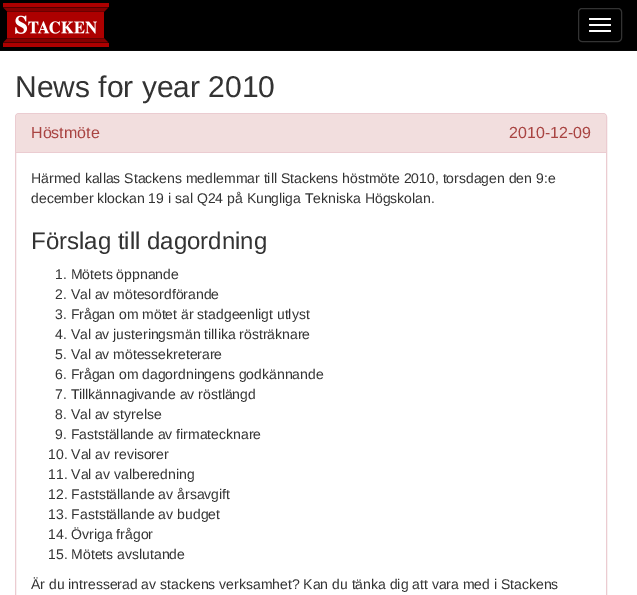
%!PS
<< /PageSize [637 595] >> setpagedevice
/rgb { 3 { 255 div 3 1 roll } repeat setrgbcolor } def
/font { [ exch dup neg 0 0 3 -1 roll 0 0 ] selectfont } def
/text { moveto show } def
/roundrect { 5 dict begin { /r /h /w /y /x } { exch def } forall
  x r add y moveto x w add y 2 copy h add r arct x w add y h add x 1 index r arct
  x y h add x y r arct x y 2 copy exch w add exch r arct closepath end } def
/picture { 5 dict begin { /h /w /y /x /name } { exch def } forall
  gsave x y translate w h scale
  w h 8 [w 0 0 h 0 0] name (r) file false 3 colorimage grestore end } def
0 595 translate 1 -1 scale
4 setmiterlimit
255 255 255 rgb
0 0 637 595 rectfill
0 0 0 rgb
0 0 637 50 rectfill
8 8 8 rgb
0 50 637 1 rectfill
(img_01.rgb) 3 3 106 44 picture
51 51 51 rgb
578.5 8.5 43 33 3.5 roundrect stroke
255 255 255 rgb
589 18 22 2 1 roundrect fill
589 24 22 2 1 roundrect fill
589 30 22 2 1 roundrect fill
235 204 209 rgb
15.5 113.5 591 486 3.5 roundrect stroke
242 222 222 rgb
19 114 moveto 584 0 rlineto 1.5 0 3 1.5 3 3 rcurveto 0 36 rlineto -590 0 rlineto 0 -36 rlineto 0 -1.5 1.5 -3 3 -3 rcurveto closepath fill
235 204 209 rgb
16 152 590 1 rectfill
/LiberationSans-Regular 30 font
51 51 51 rgb
(News for year 2010) 15 97 text
/LiberationSans-Regular 16 font
169 68 66 rgb
(Höstmöte) 31 138 text
(2010-12-09) 509 138 text
/LiberationSans-Regular 14 font
51 51 51 rgb
(Härmed kallas Stackens medlemmar till Stackens höstmöte 2010, torsdagen den 9:e) 31 183 text
(december klockan 19 i sal Q24 på Kungliga Tekniska Högskolan.) 31 203 text
/LiberationSans-Regular 24 font
(Förslag till dagordning) 31 249 text
/LiberationSans-Regular 14 font
(1. Mötets öppnande) 55 279 text
(2. Val av mötesordförande) 55 299 text
(3. Frågan om mötet är stadgeenligt utlyst) 55 319 text
(4. Val av justeringsmän tillika rösträknare) 55 339 text
(5. Val av mötessekreterare) 55 359 text
(6. Frågan om dagordningens godkännande) 55 379 text
(7. Tillkännagivande av röstlängd) 55 399 text
(8. Val av styrelse) 55 419 text
(9. Fastställande av firmatecknare) 55 439 text
(10. Val av revisorer) 48 459 text
(11. Val av valberedning) 48 479 text
(12. Fastställande av årsavgift) 48 499 text
(13. Fastställande av budget) 48 519 text
(14. Övriga frågor) 48 539 text
(15. Mötets avslutande) 48 559 text
(Är du intresserad av stackens verksamhet? Kan du tänka dig att vara med i Stackens) 31 589 text
showpage
